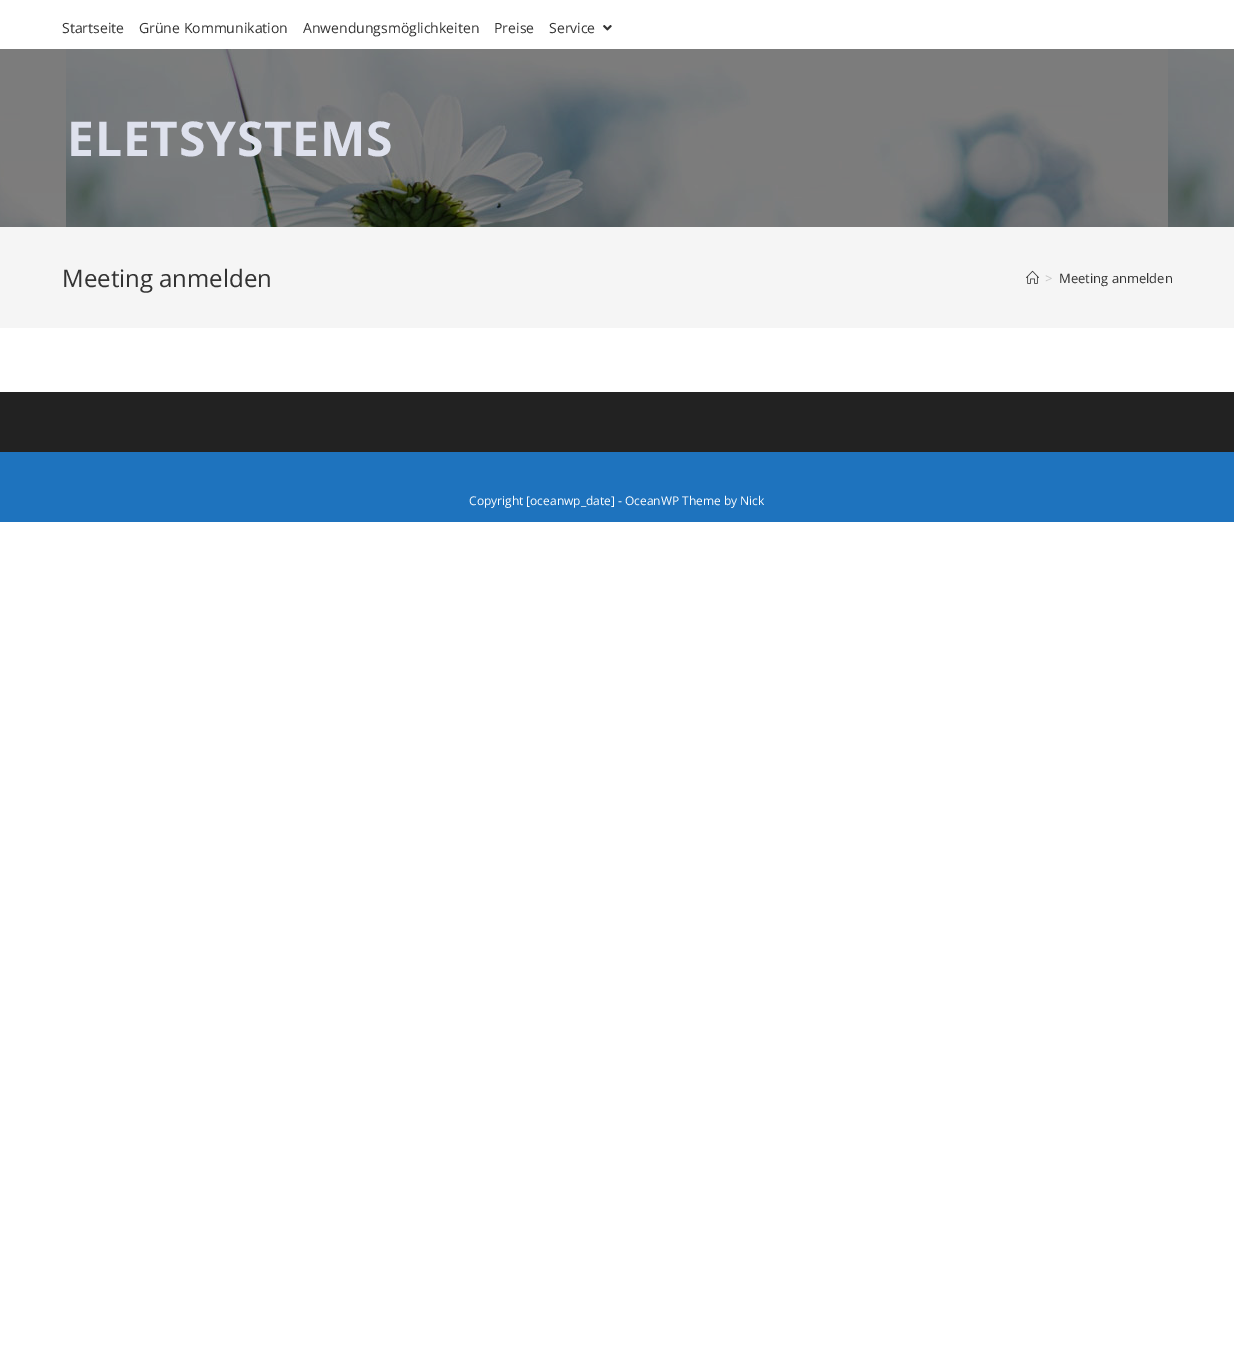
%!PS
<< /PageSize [1234 1367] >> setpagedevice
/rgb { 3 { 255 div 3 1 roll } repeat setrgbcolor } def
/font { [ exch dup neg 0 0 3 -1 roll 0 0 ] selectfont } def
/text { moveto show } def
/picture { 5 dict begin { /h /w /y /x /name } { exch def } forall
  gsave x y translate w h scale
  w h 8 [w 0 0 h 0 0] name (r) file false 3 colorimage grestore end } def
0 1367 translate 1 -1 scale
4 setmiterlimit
255 255 255 rgb
0 0 1234 1367 rectfill
(img_01.rgb) 603 25 9 6 picture
(img_02.rgb) 0 49 1234 178 picture
245 245 245 rgb
0 227 1234 101 rectfill
(img_03.rgb) 1026 270 13 14 picture
34 34 34 rgb
0 392 1234 60 rectfill
30 115 190 rgb
0 452 1234 70 rectfill
/OpenSans-Regular 14 font
51 51 51 rgb
(Startseite) 62 33 text
(Grüne Kommunikation) 139 33 text
(Anwendungsmöglichkeiten) 303 33 text
(Preise) 494 33 text
(Service) 549 33 text
/OpenSans-Bold 48 font
222 225 237 rgb
67 156 moveto 0.75 0 (ELETSYSTEMS) ashow
/OpenSans-Regular 24 font
51 51 51 rgb
(Meeting anmelden) 62 287 text
/OpenSans-Regular 13 font
198 198 198 rgb
(>) 1045 283 text
51 51 51 rgb
(Meeting anmelden) 1059 283 text
/OpenSans-Regular 12 font
255 255 255 rgb
(Copyright [oceanwp_date] - OceanWP Theme by Nick) 469 505 text
showpage
